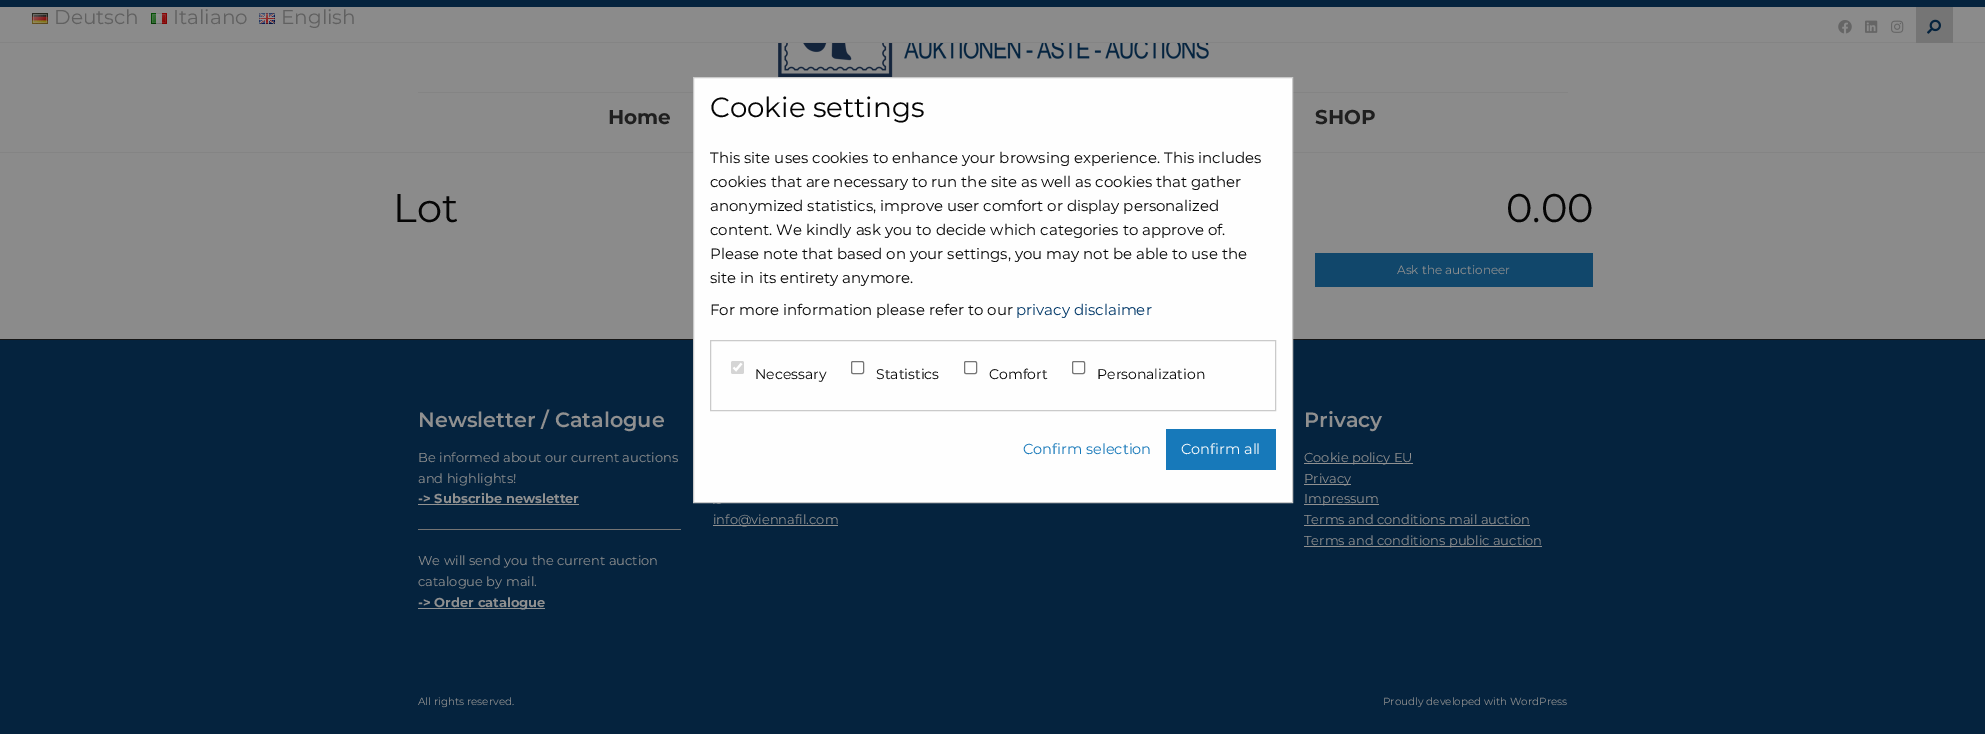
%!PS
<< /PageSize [1985 734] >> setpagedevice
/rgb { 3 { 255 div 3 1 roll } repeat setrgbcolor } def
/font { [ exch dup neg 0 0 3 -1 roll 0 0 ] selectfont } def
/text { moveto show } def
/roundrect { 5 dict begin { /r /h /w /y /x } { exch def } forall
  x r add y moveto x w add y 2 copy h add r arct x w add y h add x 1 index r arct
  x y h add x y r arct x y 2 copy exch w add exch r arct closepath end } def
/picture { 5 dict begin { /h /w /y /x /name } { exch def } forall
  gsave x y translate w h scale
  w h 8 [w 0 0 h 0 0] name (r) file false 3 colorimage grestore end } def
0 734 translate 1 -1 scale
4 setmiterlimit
139 139 139 rgb
0 0 1985 734 rectfill
132 132 132 rgb
0 152 1985 1 rectfill
5 35 62 rgb
0 0 1985 7 rectfill
132 132 132 rgb
0 42 1985 1 rectfill
(img_01.rgb) 32 13 16 11 picture
(img_02.rgb) 151 13 16 11 picture
(img_03.rgb) 259 13 16 11 picture
(img_04.rgb) 1838 20 14 14 picture
(img_05.rgb) 1865 20 13 13 picture
(img_06.rgb) 1891 20 13 13 picture
117 117 117 rgb
1916 7 37 36 rectfill
(img_07.rgb) 1927 19 14 15 picture
(img_08.rgb) 778 43 431 34 picture
132 132 132 rgb
418 92 1150 1 rectfill
17 71 107 rgb
1315 253 278 34 rectfill
5 35 62 rgb
0 340 1985 394 rectfill
22 22 22 rgb
0 339 1985 1 rectfill
145 145 145 rgb
418 504 161 1 rectfill
116 116 116 rgb
418 529 263 1 rectfill
145 145 145 rgb
418 608 127 1 rectfill
(img_09.rgb) 713 503 9 1 picture
713 525 125 1 rectfill
1304 463 109 1 rectfill
1304 484 47 1 rectfill
1304 504 75 1 rectfill
1304 525 226 1 rectfill
1304 546 238 1 rectfill
254 254 254 rgb
693.5 77.5 moveto 599 0 rlineto 0 425 rlineto -599 0 rlineto closepath gsave fill grestore
202 202 202 rgb
stroke
710.5 340.5 565 70 rectstroke
213 213 213 rgb
731 361 13 13 2 roundrect fill
255 255 255 rgb
2.1 setlinewidth
733.5 367.5 moveto 2.5 2.5 rlineto 5.5 -6.5 rlineto stroke
118 118 118 rgb
1 setlinewidth
851.5 361.5 12 12 1.5 roundrect stroke
964.5 361.5 12 12 1.5 roundrect stroke
1072.5 361.5 12 12 1.5 roundrect stroke
23 121 186 rgb
1166 429 110 41 rectfill
/Montserrat-Regular 20 font
97 97 97 rgb
(Deutsch) 54 24 text
(Italiano) 173 24 text
(English) 281 24 text
/Montserrat-Bold 20 font
31 31 31 rgb
(Home) 608 124 text
(SHOP) 1315 124 text
/Montserrat-Regular 40 font
5 5 5 rgb
(Lot) 393 222 text
(0.00) 1506 222 text
/Montserrat-Regular 12 font
144 144 144 rgb
(Ask the auctioneer) 1397 274 text
/Montserrat-SemiBold 20.75 font
(Newsletter / Catalogue) 418 427 text
/Montserrat-Regular 13 font
(Be informed about our current auctions) 418 462 text
(and highlights!) 418 483 text
/Montserrat-Bold 13 font
(-> Subscribe newsletter) 418 503 text
/Montserrat-Regular 13 font
(We will send you the current auction) 418 565 text
(catalogue by mail.) 418 586 text
/Montserrat-Bold 13 font
(-> Order catalogue) 418 607 text
/Montserrat-Regular 13 font
(info@viennafil.com) 713 524 text
/Montserrat-SemiBold 20.75 font
(Privacy) 1304 427 text
/Montserrat-Regular 13 font
(Cookie policy EU) 1304 462 text
(Privacy) 1304 483 text
(Impressum) 1304 503 text
(Terms and conditions mail auction) 1304 524 text
(Terms and conditions public auction) 1304 545 text
/Montserrat-Regular 10.4 font
(All rights reserved.) 418 705 text
(Proudly developed with WordPress) 1383 705 text
/Montserrat-Regular 27.75 font
5 5 5 rgb
(Cookie settings) 710 117 text
/Montserrat-Regular 15 font
(This site uses cookies to enhance your browsing experience. This includes) 710 163 text
(cookies that are necessary to run the site as well as cookies that gather) 710 187 text
(anonymized statistics, improve user comfort or display personalized) 710 211 text
(content. We kindly ask you to decide which categories to approve of.) 710 235 text
(Please note that based on your settings, you may not be able to use the) 710 259 text
(site in its entirety anymore.) 710 283 text
(For more information please refer to our) 710 315 text
0 55 104 rgb
(privacy disclaimer) 1016 315 text
/Montserrat-Regular 14 font
5 5 5 rgb
(Necessary) 755 379 text
(Statistics) 876 379 text
(Comfort) 989 379 text
(Personalization) 1097 379 text
/Montserrat-Regular 14.5 font
23 121 186 rgb
(Confirm selection) 1023 454 text
254 254 254 rgb
(Confirm all) 1181 454 text
showpage
